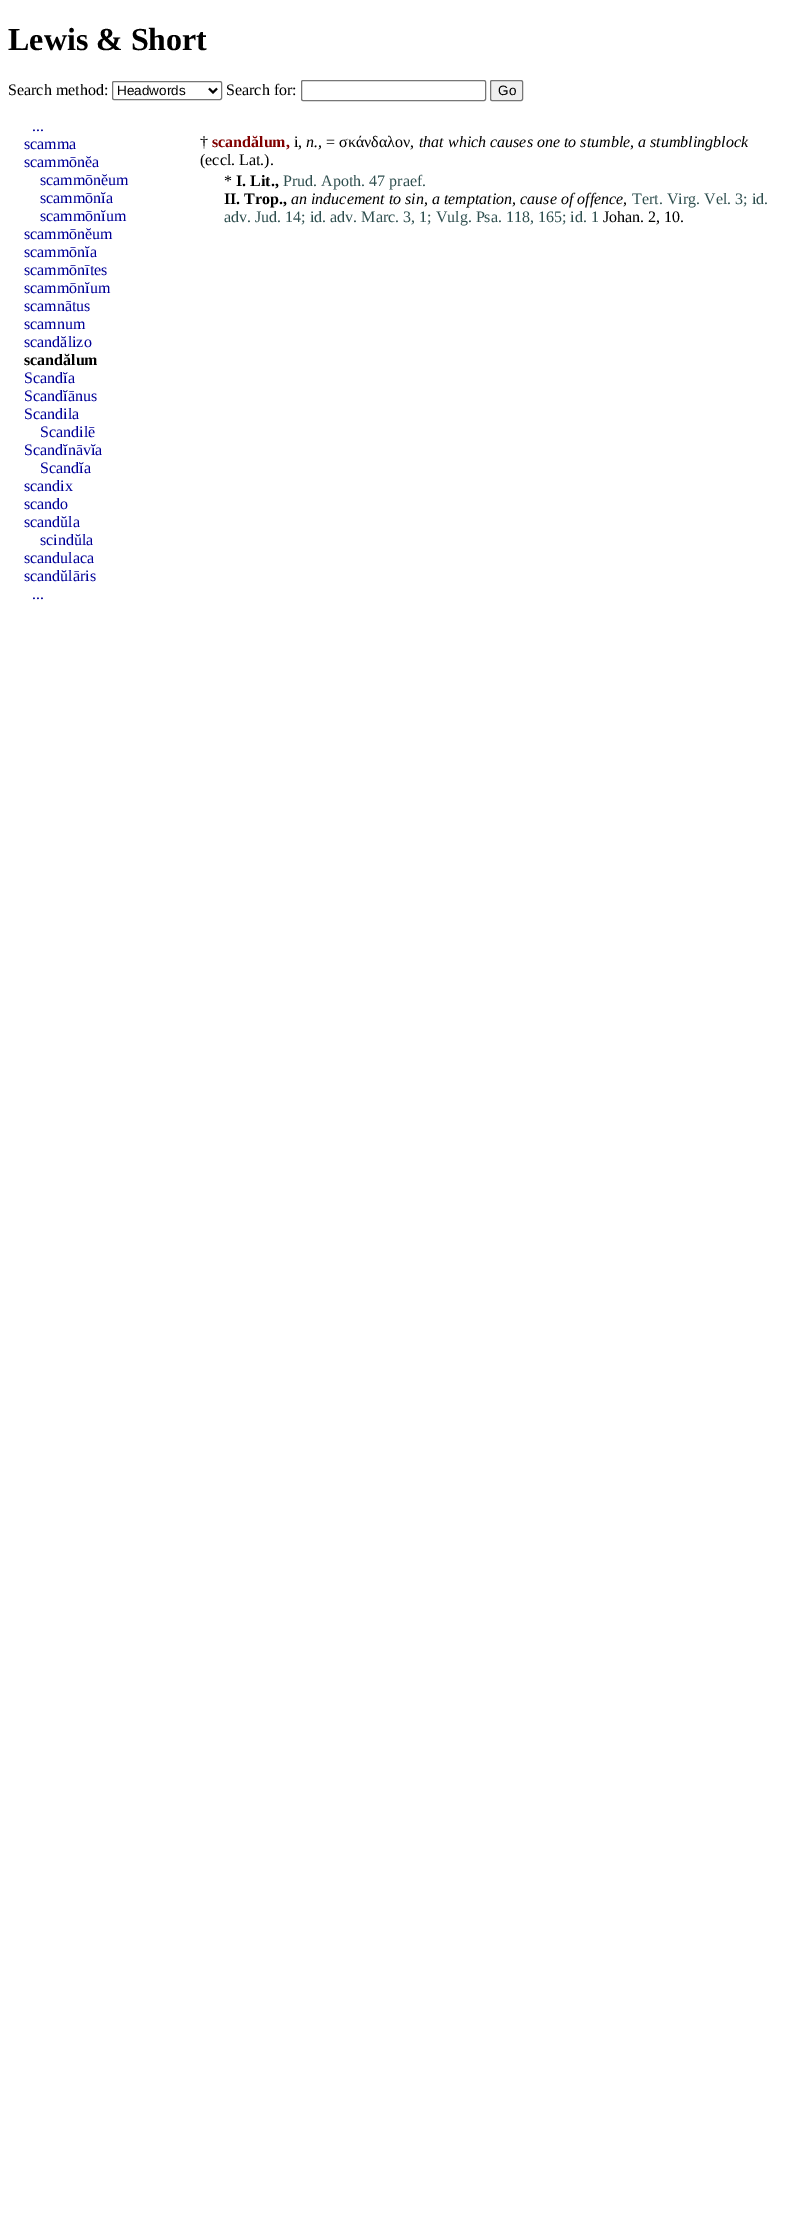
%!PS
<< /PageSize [793 2235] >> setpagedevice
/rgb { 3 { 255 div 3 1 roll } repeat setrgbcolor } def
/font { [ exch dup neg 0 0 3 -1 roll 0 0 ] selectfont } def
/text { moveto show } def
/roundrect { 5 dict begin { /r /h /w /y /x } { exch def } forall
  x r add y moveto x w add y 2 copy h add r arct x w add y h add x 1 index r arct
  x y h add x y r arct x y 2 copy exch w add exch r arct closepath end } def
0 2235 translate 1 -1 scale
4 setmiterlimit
255 255 255 rgb
0 0 793 2235 rectfill
118 118 118 rgb
112.5 81.5 109 18 1.5 roundrect stroke
0 0 0 rgb
2 setlinewidth
209 88.5 moveto 4 4 rlineto 4 -4 rlineto stroke
118 118 118 rgb
1 setlinewidth
301.5 80.5 184 20 1.5 roundrect stroke
239 239 239 rgb
490.5 80.5 32 20 1.5 roundrect gsave fill grestore
118 118 118 rgb
stroke
/LiberationSerif-Bold 32 font
0 0 0 rgb
(Lewis & Short) 8 50 text
/LiberationSerif-Regular 16 font
(Search method:) 8 95 text
/LiberationSans-Regular 13.5 font
(Headwords) 117 95 text
/LiberationSerif-Regular 16 font
(Search for:) 226 95 text
/LiberationSans-Regular 13.5 font
(Go) 498 95 text
/LiberationSerif-Regular 16 font
0 0 152 rgb
(...) 32 131 text
(scamma) 24 149 text
(scammōnĕa) 24 167 text
(scammōnĕum) 40 185 text
(scammōnĭa) 40 203 text
(scammōnĭum) 40 221 text
(scammōnĕum) 24 239 text
(scammōnĭa) 24 257 text
(scammōnītes) 24 275 text
(scammōnĭum) 24 293 text
(scamnātus) 24 311 text
(scamnum) 24 329 text
(scandălizo) 24 347 text
/LiberationSerif-Bold 16 font
0 0 0 rgb
(scandălum) 24 365 text
/LiberationSerif-Regular 16 font
0 0 152 rgb
(Scandĭa) 24 383 text
(Scandĭānus) 24 401 text
(Scandila) 24 419 text
(Scandilē) 40 437 text
(Scandĭnāvĭa) 24 455 text
(Scandĭa) 40 473 text
(scandix) 24 491 text
(scando) 24 509 text
(scandŭla) 24 527 text
(scindŭla) 40 545 text
(scandulaca) 24 563 text
(scandŭlāris) 24 581 text
(...) 32 599 text
0 0 0 rgb
(†) 200 147 text
/LiberationSerif-Bold 16 font
128 0 0 rgb
(scandălum,) 212 147 text
/LiberationSerif-Regular 16 font
0 0 0 rgb
(i,) 294 147 text
/LiberationSerif-Italic 16 font
(n.,) 306 147 text
/LiberationSerif-Regular 16 font
(= σκάνδαλον,) 326 147 text
/LiberationSerif-Italic 16 font
(that which causes one to stumble, a stumblingblock) 419 147 text
/LiberationSerif-Regular 16 font
(\(eccl. Lat.\).) 200 165 text
(*) 224 186 text
/LiberationSerif-Bold 16 font
(I. Lit.,) 236 186 text
/LiberationSerif-Regular 16 font
47 79 79 rgb
(Prud. Apoth. 47 praef.) 283 186 text
/LiberationSerif-Bold 16 font
0 0 0 rgb
(II. Trop.,) 224 204 text
/LiberationSerif-Italic 16 font
(an inducement to sin, a temptation, cause of offence,) 291 204 text
/LiberationSerif-Regular 16 font
47 79 79 rgb
(Tert. Virg. Vel. 3; id.) 632 204 text
(adv. Jud. 14; id. adv. Marc. 3, 1; Vulg. Psa. 118, 165; id. 1) 224 222 text
0 0 0 rgb
(Johan. 2, 10.) 603 222 text
showpage
